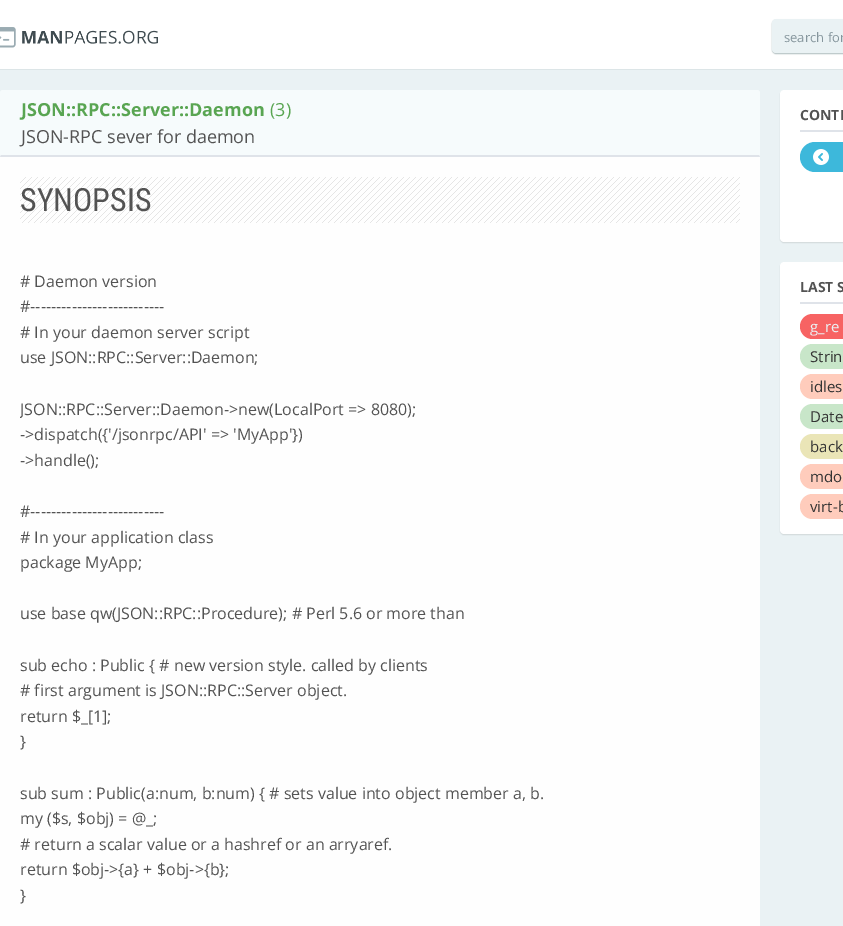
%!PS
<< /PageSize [843 926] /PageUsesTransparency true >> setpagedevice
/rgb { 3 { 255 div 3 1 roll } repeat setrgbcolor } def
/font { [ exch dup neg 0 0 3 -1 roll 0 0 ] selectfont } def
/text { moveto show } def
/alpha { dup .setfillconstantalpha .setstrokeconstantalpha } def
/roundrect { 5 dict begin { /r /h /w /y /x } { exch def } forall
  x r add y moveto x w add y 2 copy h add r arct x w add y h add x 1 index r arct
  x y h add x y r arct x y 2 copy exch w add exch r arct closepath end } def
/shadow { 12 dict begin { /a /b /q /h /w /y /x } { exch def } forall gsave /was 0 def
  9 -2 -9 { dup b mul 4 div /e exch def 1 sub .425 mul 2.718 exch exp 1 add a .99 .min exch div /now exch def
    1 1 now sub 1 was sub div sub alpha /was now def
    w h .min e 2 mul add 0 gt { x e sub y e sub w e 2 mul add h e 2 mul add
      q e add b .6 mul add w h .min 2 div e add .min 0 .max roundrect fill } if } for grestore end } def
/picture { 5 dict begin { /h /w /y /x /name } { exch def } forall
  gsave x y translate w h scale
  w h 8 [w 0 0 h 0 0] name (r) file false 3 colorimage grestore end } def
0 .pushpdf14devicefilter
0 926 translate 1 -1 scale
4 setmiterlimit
234 242 244 rgb
0 0 843 926 rectfill
255 255 255 rgb
0 0 843 69 rectfill
220 229 231 rgb
0 69 843 1 rectfill
(img_01.rgb) 0 27 158 21 picture
6 47 55 rgb
772 20 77 34 4 0.5 0.3 shadow
234 242 244 rgb
772 19 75 34 4 roundrect fill
254 254 254 rgb
4 90 moveto 752 0 rlineto 2 0 4 2 4 4 rcurveto 0 832 rlineto -760 0 rlineto 0 -832 rlineto 0 -2 2 -4 4 -4 rcurveto closepath fill
246 251 252 rgb
3 90 moveto 754 0 rlineto 1.5 0 3 1.5 3 3 rcurveto 0 64 rlineto -760 0 rlineto 0 -64 rlineto 0 -1.5 1.5 -3 3 -3 rcurveto closepath fill
223 227 233 rgb
760 157 moveto -1 -2 rlineto -758 0 rlineto -1 2 rlineto closepath fill
(img_02.rgb) 20 177 720 46 picture
0 0 0 rgb
780 91 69 152 4 0.5 0.1 shadow
255 255 255 rgb
784 90 moveto 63 0 rlineto 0 152 rlineto -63 0 rlineto -2 0 -4 -2 -4 -4 rcurveto 0 -144 rlineto 0 -2 2 -4 4 -4 rcurveto closepath fill
223 227 233 rgb
800 130 43 2 rectfill
61 184 219 rgb
800 142 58 30 15 roundrect fill
(img_03.rgb) 813 149 16 16 picture
0 0 0 rgb
780 263 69 272 4 0.5 0.1 shadow
255 255 255 rgb
784 262 moveto 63 0 rlineto 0 272 rlineto -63 0 rlineto -2 0 -4 -2 -4 -4 rcurveto 0 -264 rlineto 0 -2 2 -4 4 -4 rcurveto closepath fill
223 227 233 rgb
800 302 43 2 rectfill
247 99 99 rgb
800 314 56 25 12.5 roundrect fill
200 230 201 rgb
800 344 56 25 12.5 roundrect fill
255 204 188 rgb
800 374 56 25 12.5 roundrect fill
200 230 201 rgb
800 404 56 25 12.5 roundrect fill
234 229 183 rgb
800 434 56 25 12.5 roundrect fill
255 204 188 rgb
800 464 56 25 12.5 roundrect fill
800 494 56 25 12.5 roundrect fill
/OpenSans-Regular 13 font
134 150 157 rgb
(search for) 784 42 text
/OpenSans-Bold 18 font
89 165 82 rgb
(JSON::RPC::Server::Daemon) 21 116 text
/OpenSans-Regular 18 font
(\(3\)) 270 116 text
83 83 83 rgb
(JSON-RPC sever for daemon) 21 143 text
/RobotoCondensed-Regular 32 font
(SYNOPSIS) 20 211 text
/OpenSans-Regular 16 font
(# Daemon version) 20 287 text
(#--------------------------) 20 312 text
(# In your daemon server script) 20 338 text
(use JSON::RPC::Server::Daemon;) 20 363 text
gsave
20 177 720 749 rectclip
(JSON::RPC::Server::Daemon->new\(LocalPort => 8080\);) 20 415 text
grestore
(->dispatch\({'/jsonrpc/API' => 'MyApp'}\)) 20 440 text
(->handle\(\);) 20 466 text
(#--------------------------) 20 517 text
(# In your application class) 20 543 text
(package MyApp;) 20 568 text
(use base qw\(JSON::RPC::Procedure\); # Perl 5.6 or more than) 20 619 text
(sub echo : Public { # new version style. called by clients) 20 671 text
(# first argument is JSON::RPC::Server object.) 20 696 text
(return $_[1];) 20 722 text
(}) 20 747 text
(sub sum : Public\(a:num, b:num\) { # sets value into object member a, b.) 20 799 text
(my \($s, $obj\) = @_;) 20 824 text
(# return a scalar value or a hashref or an arryaref.) 20 850 text
(return $obj->{a} + $obj->{b};) 20 875 text
(}) 20 901 text
/OpenSans-Bold 14 font
(CONTE) 800 120 text
(LAST S) 800 292 text
/OpenSans-Regular 15 font
234 242 244 rgb
(g_re) 810 332 text
51 51 51 rgb
(Strin) 810 362 text
(idles) 810 392 text
(Date) 810 422 text
(back) 810 452 text
(mdo) 810 482 text
(virt-b) 810 512 text
.poppdf14devicefilter showpage
